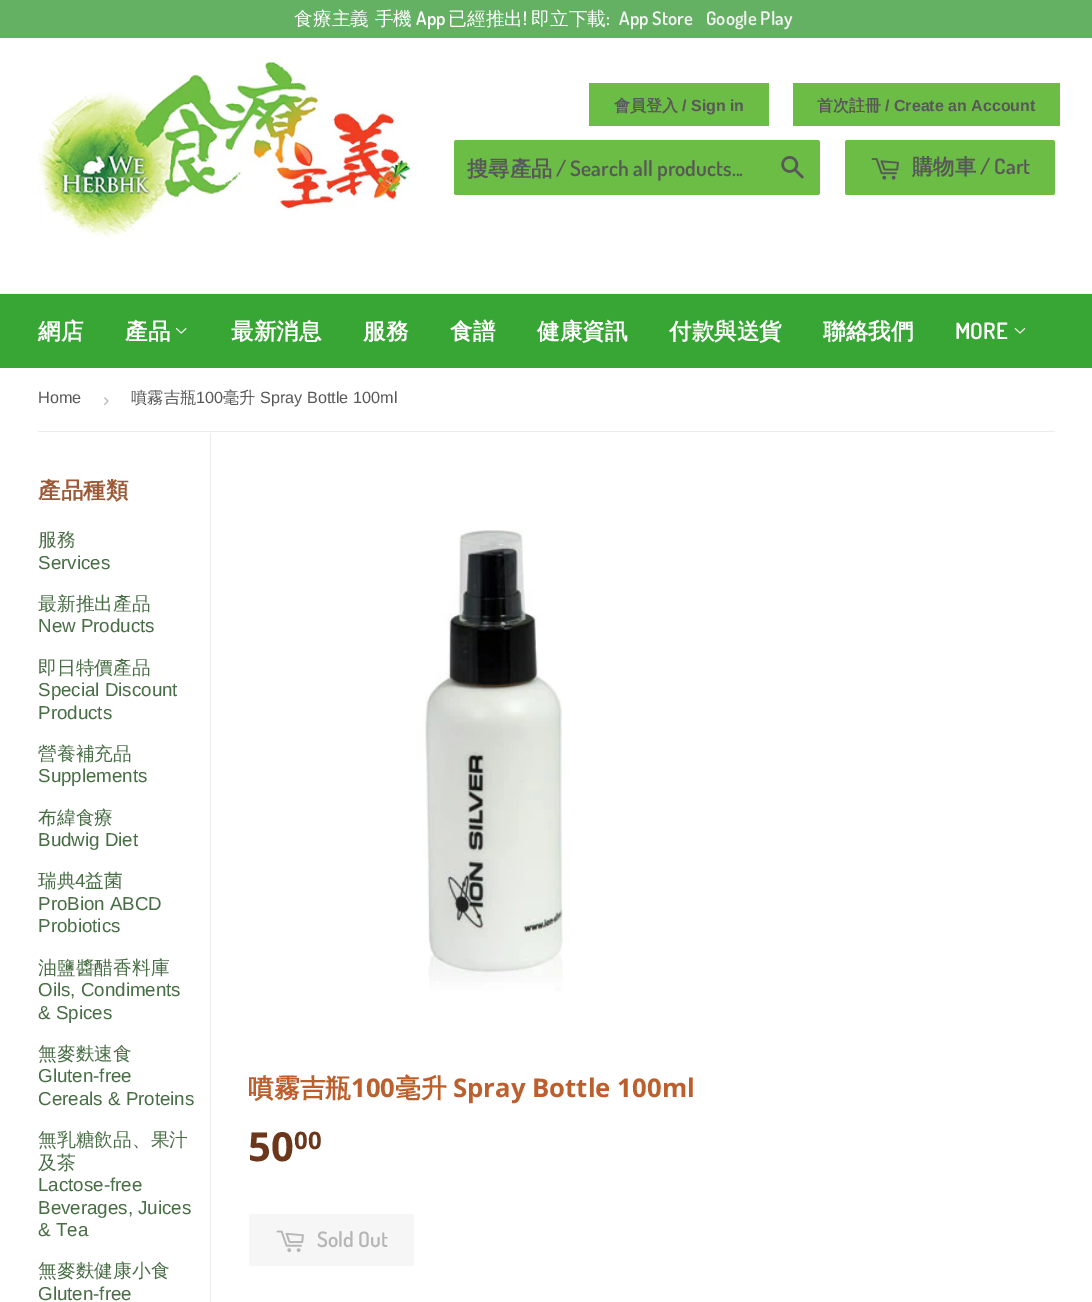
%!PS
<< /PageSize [1092 1302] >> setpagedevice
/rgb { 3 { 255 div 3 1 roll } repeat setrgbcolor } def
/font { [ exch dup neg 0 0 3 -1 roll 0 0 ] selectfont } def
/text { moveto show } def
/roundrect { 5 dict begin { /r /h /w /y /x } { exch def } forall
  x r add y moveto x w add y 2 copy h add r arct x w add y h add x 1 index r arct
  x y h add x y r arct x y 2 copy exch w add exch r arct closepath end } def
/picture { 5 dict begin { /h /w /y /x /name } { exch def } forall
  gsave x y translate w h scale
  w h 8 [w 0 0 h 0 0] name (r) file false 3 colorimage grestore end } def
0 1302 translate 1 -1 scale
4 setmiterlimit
255 255 255 rgb
0 0 1092 1302 rectfill
100 177 100 rgb
0 0 1092 38 rectfill
(img_01.rgb) 37 56 374 182 picture
108 189 69 rgb
589 83 180 43 rectfill
793 83 267 43 rectfill
454 140 366 55 2.5 roundrect fill
(img_02.rgb) 781 156 23 23 picture
845 140 210 55 2.5 roundrect fill
(img_03.rgb) 871 158 28 22 picture
56 166 53 rgb
0 294 1092 74 rectfill
(img_04.rgb) 175 327 12 7 picture
(img_05.rgb) 1014 327 12 7 picture
236 236 236 rgb
38 431 1017 1 rectfill
210 433 1 869 rectfill
(img_06.rgb) 425 530 138 461 picture
246 246 246 rgb
249 1214 165 52 2.5 roundrect fill
(img_07.rgb) 276 1230 28 22 picture
/WenQuanYiZenHei-Medium 18.75 font
255 255 255 rgb
(食療主義 手機) 294 25 text
/Dosis-SemiBold 18.75 font
(App) 416 25 text
/WenQuanYiZenHei-Medium 18.75 font
(已經推出) 448 25 text
/Dosis-SemiBold 18.75 font
(!) 523 25 text
/WenQuanYiZenHei-Medium 18.75 font
(即立下載) 531 25 text
/Dosis-SemiBold 18.75 font
(:) 606 25 text
243 243 243 rgb
(App Store) 619 25 text
(Google Play) 706 25 text
/WenQuanYiZenHei-Bold 16 font
88 88 88 rgb
(會員登入) 614 111 text
/LiberationSans-Bold 16 font
(/ Sign in) 682 111 text
/WenQuanYiZenHei-Bold 16 font
(首次註冊) 817 111 text
/LiberationSans-Bold 16 font
(/ Create an Account) 885 111 text
/WenQuanYiZenHei-Bold 21.25 font
(搜尋產品) 467 176 text
/Dosis-SemiBold 21.25 font
(/ Search all products...) 556 176 text
/WenQuanYiZenHei-Bold 21.25 font
(購物車) 912 174 text
/Dosis-SemiBold 21.25 font
(/ Cart) 980 174 text
/WenQuanYiZenHei-Bold 22.5 font
255 255 255 rgb
(網店) 38 339 text
(產品) 125 339 text
(最新消息) 231 339 text
(服務) 363 339 text
(食譜) 450 339 text
(健康資訊) 537 339 text
(付款與送貨) 669 339 text
(聯絡我們) 823 339 text
/Dosis-SemiBold 22.5 font
(MORE) 955 339 text
/LiberationSans-Regular 16.25 font
88 88 88 rgb
(Home) 38 403 text
/LiberationSans-Regular 18.75 font
182 182 182 rgb
(›) 103 406 text
/WenQuanYiZenHei-Medium 16.25 font
88 88 88 rgb
(噴霧吉瓶) 131 403 text
/LiberationSans-Regular 16.25 font
(100) 196 403 text
/WenQuanYiZenHei-Medium 16.25 font
(毫升) 223 403 text
/LiberationSans-Regular 16.25 font
(Spray Bottle 100ml) 260 403 text
/WenQuanYiZenHei-Bold 22.5 font
157 90 54 rgb
(產品種類) 38 498 text
/WenQuanYiZenHei-Medium 18.75 font
72 110 69 rgb
(服務) 38 546 text
/LiberationSans-Regular 18.75 font
(Services) 38 569 text
/WenQuanYiZenHei-Medium 18.75 font
(最新推出產品) 38 610 text
/LiberationSans-Regular 18.75 font
(New Products) 38 632 text
/WenQuanYiZenHei-Medium 18.75 font
(即日特價產品) 38 674 text
/LiberationSans-Regular 18.75 font
(Special Discount) 38 696 text
(Products) 38 719 text
/WenQuanYiZenHei-Medium 18.75 font
(營養補充品) 38 760 text
/LiberationSans-Regular 18.75 font
(Supplements) 38 782 text
/WenQuanYiZenHei-Medium 18.75 font
(布緯食療) 38 824 text
/LiberationSans-Regular 18.75 font
(Budwig Diet) 38 846 text
/WenQuanYiZenHei-Medium 18.75 font
(瑞典) 38 887 text
/LiberationSans-Regular 18.75 font
(4) 75 887 text
/WenQuanYiZenHei-Medium 18.75 font
(益菌) 85 887 text
/LiberationSans-Regular 18.75 font
(ProBion ABCD) 38 910 text
(Probiotics) 38 932 text
/WenQuanYiZenHei-Medium 18.75 font
(油鹽醬醋香料庫) 38 974 text
/LiberationSans-Regular 18.75 font
(Oils, Condiments) 38 996 text
(& Spices) 38 1019 text
/WenQuanYiZenHei-Medium 18.75 font
(無麥麩速食) 38 1060 text
/LiberationSans-Regular 18.75 font
(Gluten-free) 38 1082 text
(Cereals & Proteins) 38 1105 text
/WenQuanYiZenHei-Medium 18.75 font
(無乳糖飲品、果汁) 38 1146 text
(及茶) 38 1169 text
/LiberationSans-Regular 18.75 font
(Lactose-free) 38 1191 text
(Beverages, Juices) 38 1214 text
(& Tea) 38 1236 text
/WenQuanYiZenHei-Medium 18.75 font
(無麥麩健康小食) 38 1277 text
/LiberationSans-Regular 18.75 font
(Gluten-free) 38 1300 text
/WenQuanYiZenHei-Bold 25.75 font
189 95 44 rgb
(噴霧吉瓶) 248 1097 text
/OpenSans-Bold 25.75 font
(100) 351 1097 text
/WenQuanYiZenHei-Bold 25.75 font
(毫升) 395 1097 text
/OpenSans-Bold 25.75 font
(Spray Bottle 100ml) 453 1097 text
/OpenSans-Bold 40 font
107 54 26 rgb
(50) 248 1161 text
/OpenSans-Bold 24 font
(00) 294 1149 text
/Dosis-SemiBold 21.25 font
182 182 182 rgb
(Sold Out) 317 1247 text
showpage
